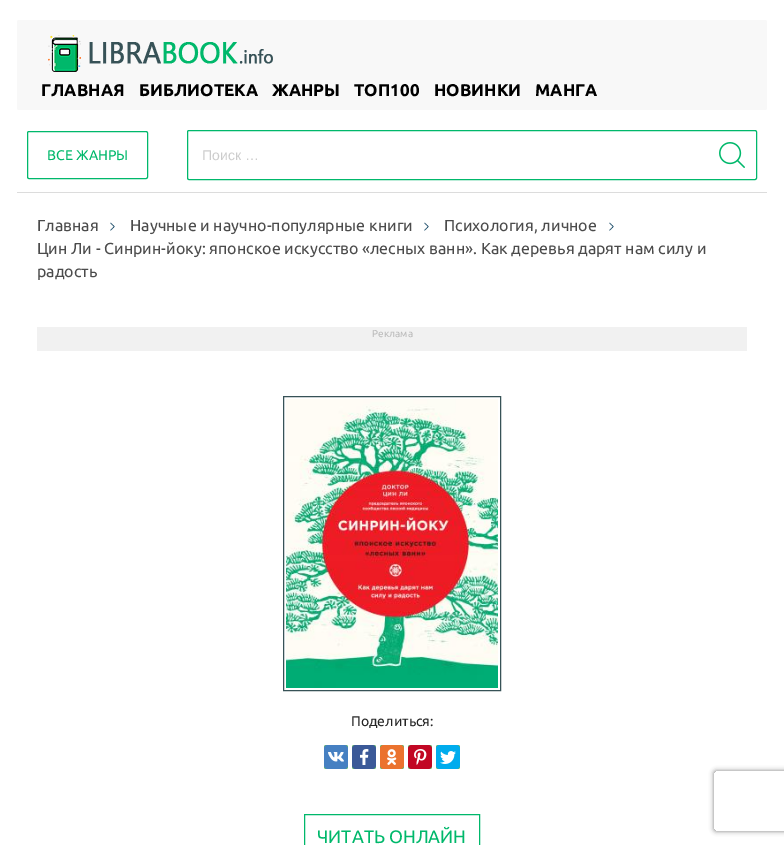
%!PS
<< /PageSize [784 845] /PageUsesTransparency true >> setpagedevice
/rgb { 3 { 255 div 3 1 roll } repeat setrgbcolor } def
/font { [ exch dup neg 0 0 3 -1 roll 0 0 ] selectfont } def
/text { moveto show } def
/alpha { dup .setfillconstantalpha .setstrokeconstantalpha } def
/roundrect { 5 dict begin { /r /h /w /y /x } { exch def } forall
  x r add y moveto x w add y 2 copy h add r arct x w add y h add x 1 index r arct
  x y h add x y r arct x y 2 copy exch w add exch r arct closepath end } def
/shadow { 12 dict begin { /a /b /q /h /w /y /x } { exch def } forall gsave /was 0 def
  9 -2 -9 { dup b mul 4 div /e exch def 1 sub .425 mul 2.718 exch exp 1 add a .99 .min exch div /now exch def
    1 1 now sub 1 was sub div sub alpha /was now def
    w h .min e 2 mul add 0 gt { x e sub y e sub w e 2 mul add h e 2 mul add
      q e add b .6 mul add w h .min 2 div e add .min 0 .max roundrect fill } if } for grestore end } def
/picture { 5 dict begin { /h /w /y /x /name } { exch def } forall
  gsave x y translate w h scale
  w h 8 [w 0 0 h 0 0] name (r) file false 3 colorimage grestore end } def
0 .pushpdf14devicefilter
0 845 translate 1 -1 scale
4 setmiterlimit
255 255 255 rgb
0 0 784 845 rectfill
248 248 248 rgb
17 20 750 90 2 roundrect fill
(img_01.rgb) 48 35 225 37 picture
220 220 220 rgb
17 192 750 1 rectfill
0 184 107 rgb
27.5 131.5 120 47 1.5 roundrect stroke
187.5 130.5 569 49 1.5 roundrect stroke
(img_02.rgb) 719 142 26 26 picture
(img_03.rgb) 110 222 5 9 picture
(img_04.rgb) 424 222 5 9 picture
(img_03.rgb) 609 222 5 9 picture
241 241 241 rgb
37 327 710 24 rectfill
55 82 87 rgb
283.5 396.5 217 294 rectstroke
(img_05.rgb) 286 399 212 289 picture
100 183 111 rgb
324 745 24 24 2 roundrect fill
70 128 194 rgb
324 745 24 24 4 roundrect fill
(img_06.rgb) 328 752 16 10 picture
100 183 111 rgb
352 745 24 24 2 roundrect fill
59 89 152 rgb
352 745 24 24 4 roundrect fill
(img_07.rgb) 360 749 9 16 picture
100 183 111 rgb
380 745 24 24 2 roundrect fill
235 114 46 rgb
380 745 24 24 4 roundrect fill
(img_08.rgb) 387 749 10 16 picture
100 183 111 rgb
408 745 24 24 2 roundrect fill
194 7 36 rgb
408 745 24 24 4 roundrect fill
(img_09.rgb) 414 749 13 16 picture
100 183 111 rgb
436 745 24 24 2 roundrect fill
0 172 237 rgb
436 745 24 24 4 roundrect fill
(img_10.rgb) 440 751 16 13 picture
0 184 107 rgb
304.5 814.5 175 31 rectstroke
gsave
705 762 moveto 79 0 rlineto 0 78 rlineto -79 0 rlineto closepath 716 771 moveto 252 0 rlineto 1 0 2 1 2 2 rcurveto 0 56 rlineto 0 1 -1 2 -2 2 rcurveto -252 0 rlineto -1 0 -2 -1 -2 -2 rcurveto 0 -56 rlineto 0 -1 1 -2 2 -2 rcurveto closepath eoclip newpath
128 128 128 rgb
714 771 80 60 2 2.5 1 shadow
grestore
/Ubuntu-Bold 17 font
0 0 0 rgb
(ГЛАВНАЯ) 41 96 text
(БИБЛИОТЕКА) 139 96 text
(ЖАНРЫ) 272 96 text
(ТОП100) 354 96 text
(НОВИНКИ) 434 96 text
(МАНГА) 535 96 text
/Ubuntu-Regular 14 font
0 184 107 rgb
(ВСЕ ЖАНРЫ) 47 160 text
/LiberationSans-Regular 14 font
204 204 204 rgb
(Поиск …) 202 160 text
/Ubuntu-Regular 16 font
75 75 75 rgb
(Главная) 37 231 text
(Научные и научно-популярные книги) 130 231 text
(Психология, личное) 444 231 text
(Цин Ли - Синрин-йоку: японское искусство «лесных ванн». Как деревья дарят нам силу и) 37 254 text
(радость) 37 277 text
/Ubuntu-Regular 10 font
187 187 187 rgb
(Реклама) 372 337 text
/Ubuntu-Regular 14 font
38 38 38 rgb
(Поделиться:) 351 726 text
/Ubuntu-Regular 18 font
0 184 107 rgb
(ЧИТАТЬ ОНЛАЙН) 317 843 text
.poppdf14devicefilter showpage
